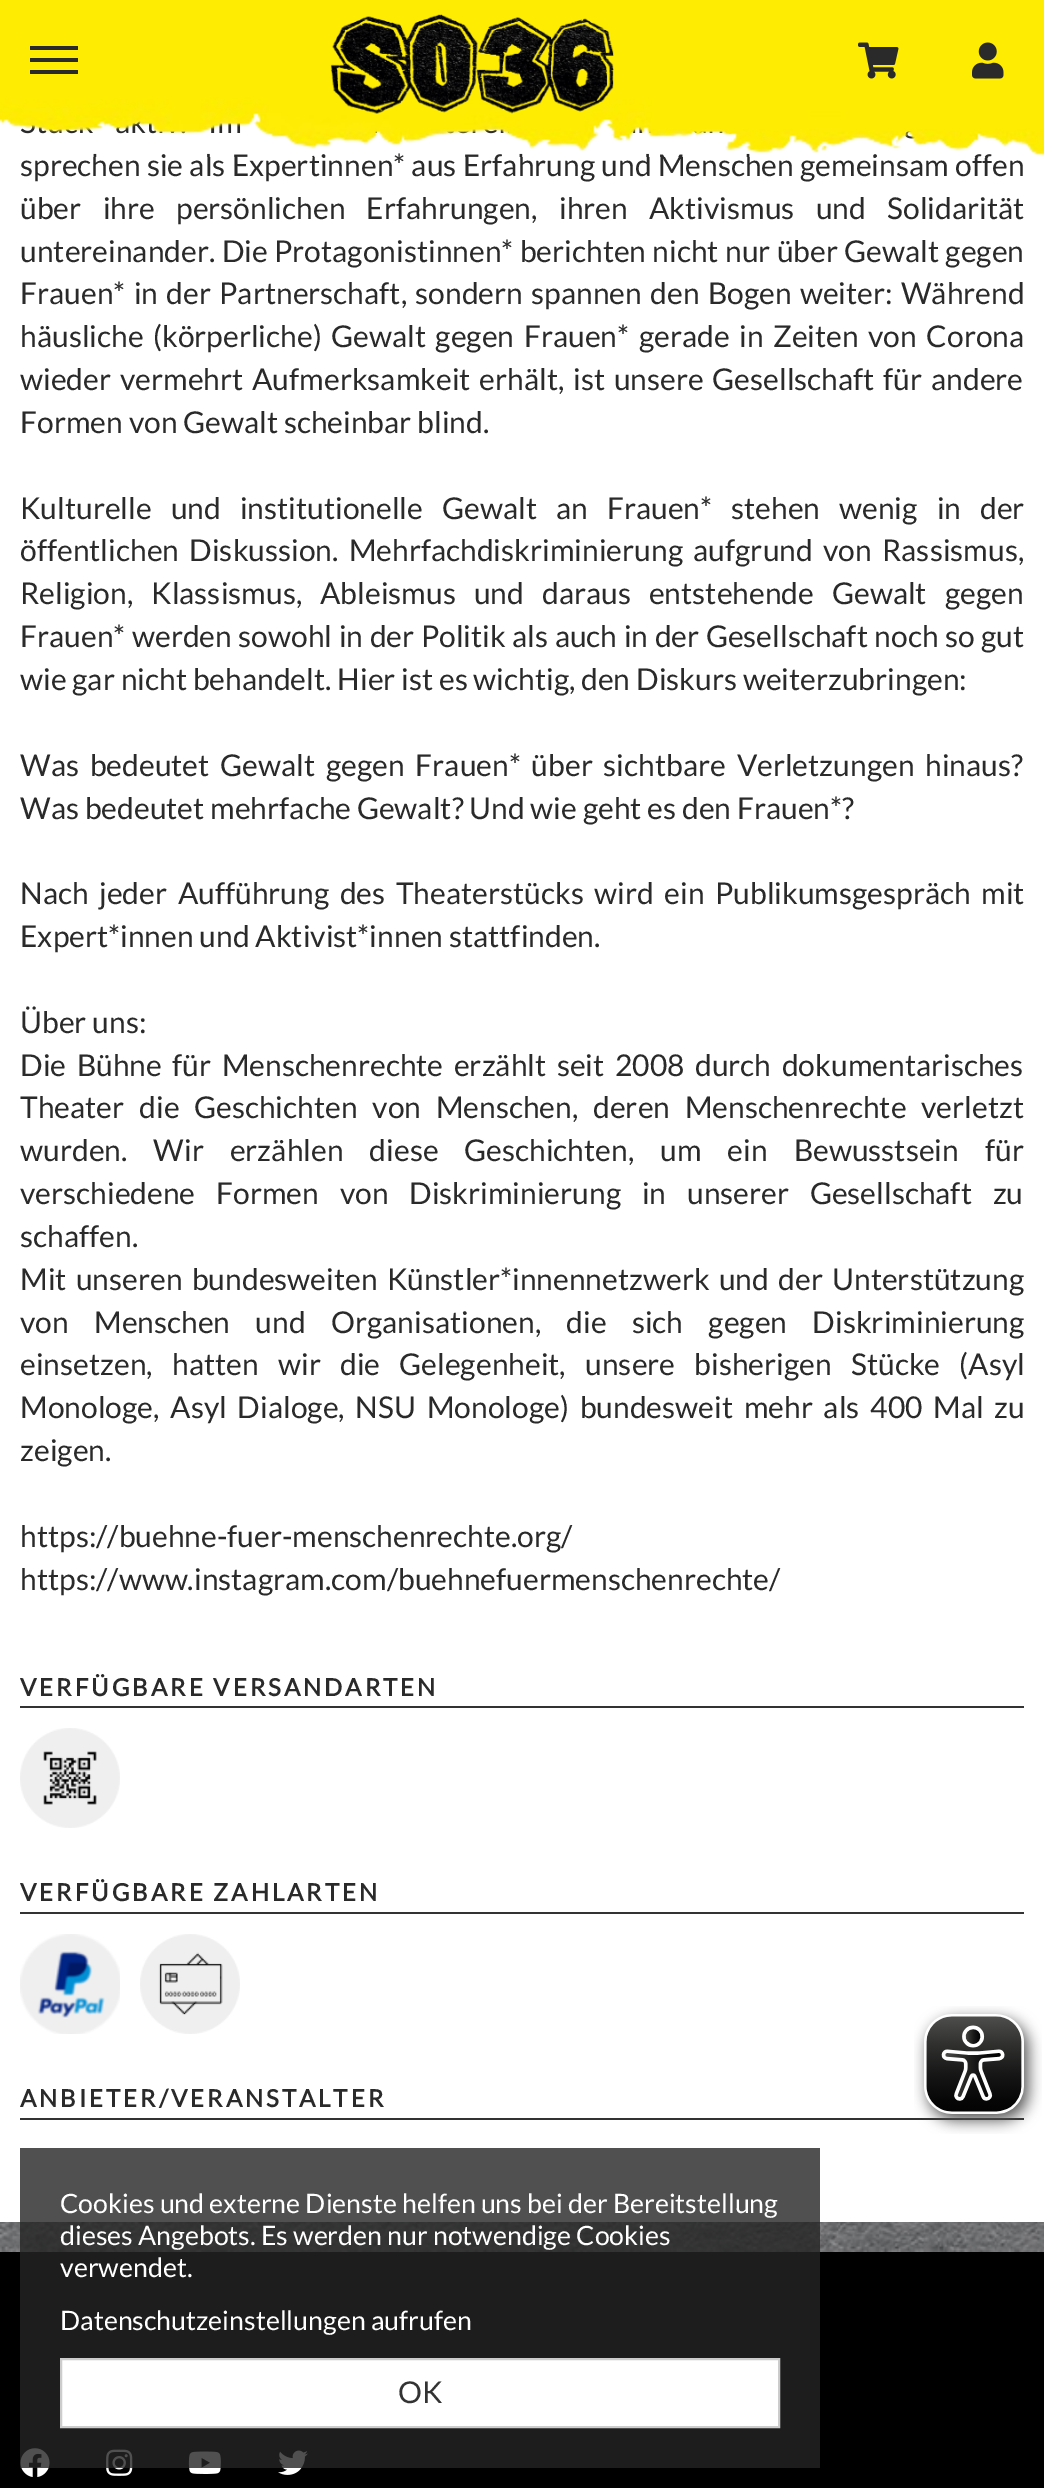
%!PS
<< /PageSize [1044 2488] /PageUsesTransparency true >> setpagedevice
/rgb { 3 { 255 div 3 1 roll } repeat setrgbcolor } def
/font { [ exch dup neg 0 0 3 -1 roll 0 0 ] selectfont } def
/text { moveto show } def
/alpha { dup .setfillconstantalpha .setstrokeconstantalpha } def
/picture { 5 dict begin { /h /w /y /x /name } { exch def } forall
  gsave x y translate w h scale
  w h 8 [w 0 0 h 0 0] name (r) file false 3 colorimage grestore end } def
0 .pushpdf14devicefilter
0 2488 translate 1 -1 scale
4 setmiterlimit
255 255 255 rgb
0 0 1044 2488 rectfill
(img_05.rgb) 0 2222 1044 30 picture
51 51 51 rgb
20 1706 1004 2 rectfill
(img_06.rgb) 20 1728 100 100 picture
20 1912 1004 2 rectfill
(img_07.rgb) 20 1934 100 100 picture
(img_08.rgb) 140 1934 100 100 picture
20 2118 1004 2 rectfill
(img_09.rgb) 914 2006 128 128 picture
0 0 0 rgb
0 2252 1044 236 rectfill
(img_10.rgb) 20 2448 30 29 picture
(img_11.rgb) 106 2449 27 27 picture
(img_12.rgb) 188 2451 33 23 picture
(img_13.rgb) 278 2450 30 25 picture
0.8 alpha
36 36 36 rgb
20 2148 800 320 rectfill
1 alpha
255 255 255 rgb
61 2359 moveto 718 0 rlineto 0 68 rlineto -718 0 rlineto closepath gsave fill grestore
204 204 204 rgb
2 setlinewidth
stroke
/Lato-Regular 30 font
42 42 42 rgb
20 176 moveto 0.5 0 32 (sprechen sie als Expertinnen* aus Erfahrung und Menschen gemeinsam offen) widthshow
(img_01.rgb) 0 0 1044 157 picture
30 70 48 4 rectfill
30 46 48 4 rectfill
30 58 48 4 rectfill
(img_04.rgb) 972 42 32 37 picture
(img_03.rgb) 858 42 41 37 picture
(img_02.rgb) 330 14 284 100 picture
20 219 moveto 15.5 0 32 (über ihre persönlichen Erfahrungen, ihren Aktivismus und Solidarität) widthshow
20 262 moveto 0.5 0 32 (untereinander. Die Protagonistinnen* berichten nicht nur über Gewalt gegen) widthshow
20 304 moveto 2.5 0 32 (Frauen* in der Partnerschaft, sondern spannen den Bogen weiter: Während) widthshow
20 347 moveto 3.75 0 32 (häusliche \(körperliche\) Gewalt gegen Frauen* gerade in Zeiten von Corona) widthshow
20 390 moveto 3 0 32 (wieder vermehrt Aufmerksamkeit erhält, ist unsere Gesellschaft für andere) widthshow
(Formen von Gewalt scheinbar blind.) 20 433 text
20 519 moveto 13.25 0 32 (Kulturelle und institutionelle Gewalt an Frauen* stehen wenig in der) widthshow
20 561 moveto 4.5 0 32 (öffentlichen Diskussion. Mehrfachdiskriminierung aufgrund von Rassismus,) widthshow
20 604 moveto 12.25 0 32 (Religion, Klassismus, Ableismus und daraus entstehende Gewalt gegen) widthshow
20 647 moveto 0.75 0 32 (Frauen* werden sowohl in der Politik als auch in der Gesellschaft noch so gut) widthshow
(wie gar nicht behandelt. Hier ist es wichtig, den Diskurs weiterzubringen:) 20 690 text
20 776 moveto 5 0 32 (Was bedeutet Gewalt gegen Frauen* über sichtbare Verletzungen hinaus?) widthshow
(Was bedeutet mehrfache Gewalt? Und wie geht es den Frauen*?) 20 819 text
20 904 moveto 4.75 0 32 (Nach jeder Aufführung des Theaterstücks wird ein Publikumsgespräch mit) widthshow
(Expert*innen und Aktivist*innen stattfinden.) 20 947 text
(Über uns:) 20 1033 text
20 1076 moveto 4.75 0 32 (Die Bühne für Menschenrechte erzählt seit 2008 durch dokumentarisches) widthshow
20 1118 moveto 9 0 32 (Theater die Geschichten von Menschen, deren Menschenrechte verletzt) widthshow
20 1161 moveto 20.25 0 32 (wurden. Wir erzählen diese Geschichten, um ein Bewusstsein für) widthshow
20 1204 moveto 15 0 32 (verschiedene Formen von Diskriminierung in unserer Gesellschaft zu) widthshow
(schaffen.) 20 1247 text
20 1290 moveto 3.5 0 32 (Mit unseren bundesweiten Künstler*innennetzwerk und der Unterstützung) widthshow
20 1333 moveto 19.5 0 32 (von Menschen und Organisationen, die sich gegen Diskriminierung) widthshow
20 1375 moveto 13.5 0 32 (einsetzen, hatten wir die Gelegenheit, unsere bisherigen Stücke \(Asyl) widthshow
20 1418 moveto 5 0 32 (Monologe, Asyl Dialoge, NSU Monologe\) bundesweit mehr als 400 Mal zu) widthshow
(zeigen.) 20 1461 text
(https://buehne-fuer-menschenrechte.org/) 20 1547 text
(https://www.instagram.com/buehnefuermenschenrechte/) 20 1590 text
/Lato-Bold 24 font
20 1696 moveto 3 0 (VERFÜGBARE VERSANDARTEN) ashow
20 1901 moveto 3 0 (VERFÜGBARE ZAHLARTEN) ashow
20 2107 moveto 3 0 (ANBIETER/VERANSTALTER) ashow
/Lato-Regular 26.7 font
255 255 255 rgb
(Cookies und externe Dienste helfen uns bei der Bereitstellung) 60 2213 text
(dieses Angebots. Es werden nur notwendige Cookies) 60 2245 text
(verwendet.) 60 2277 text
(Datenschutzeinstellungen aufrufen) 60 2330 text
/Lato-Regular 30 font
51 51 51 rgb
(OK) 398 2403 text
.poppdf14devicefilter showpage
